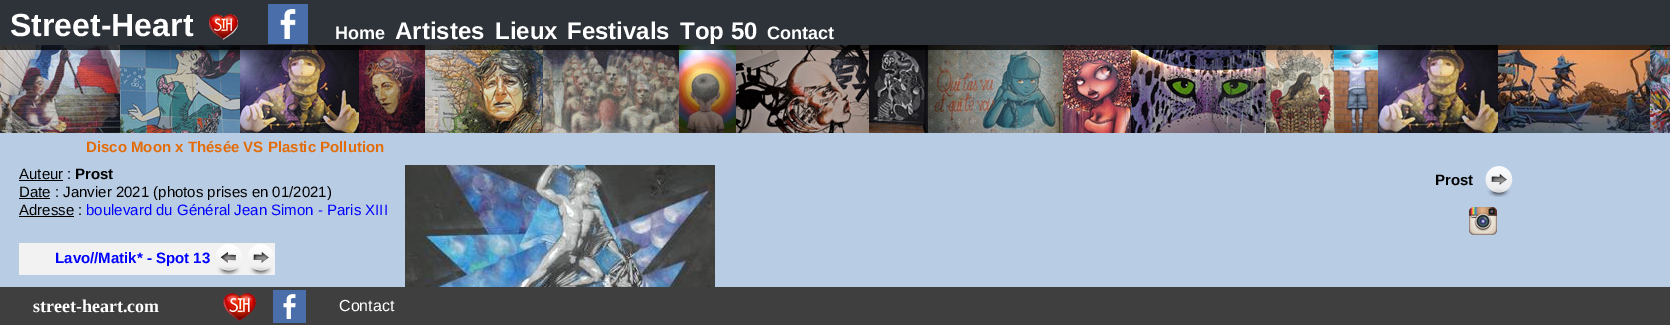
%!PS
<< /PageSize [1670 325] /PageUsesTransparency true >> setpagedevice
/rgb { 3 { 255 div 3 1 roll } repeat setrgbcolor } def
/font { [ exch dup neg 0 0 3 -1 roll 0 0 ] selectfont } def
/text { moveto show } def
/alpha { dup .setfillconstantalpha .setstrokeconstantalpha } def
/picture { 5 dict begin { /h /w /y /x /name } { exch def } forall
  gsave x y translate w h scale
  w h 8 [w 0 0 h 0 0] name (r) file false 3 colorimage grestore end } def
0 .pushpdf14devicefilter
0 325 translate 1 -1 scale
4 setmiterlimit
184 204 228 rgb
0 0 1670 325 rectfill
(img_03.rgb) 0 45 1670 88 picture
0.75 alpha
0 0 0 rgb
0 0 1670 50 rectfill
1 alpha
(img_01.rgb) 209 14 29 26 picture
(img_02.rgb) 268 4 40 40 picture
19 180 44 1 rectfill
19 198 31 1 rectfill
19 216 55 1 rectfill
242 242 242 rgb
19 243 256 32 rectfill
(img_04.rgb) 216 244 26 31 picture
(img_05.rgb) 248 244 26 31 picture
(img_06.rgb) 405 165 310 122 picture
(img_07.rgb) 1485 166 28 31 picture
(img_08.rgb) 1469 207 28 28 picture
63 63 63 rgb
0 287 1670 38 rectfill
(img_09.rgb) 223 293 33 28 picture
(img_10.rgb) 273 290 33 33 picture
/LiberationSans-Bold 32 font
255 255 255 rgb
(Street-Heart) 10 36 text
/LiberationSans-Bold 18 font
(Home) 335 39 text
/LiberationSans-Bold 24 font
(Artistes) 395 39 text
(Lieux) 495 39 text
(Festivals) 567 39 text
(Top 50) 680 39 text
/LiberationSans-Bold 18 font
(Contact) 767 39 text
/LiberationSans-Bold 15 font
227 108 9 rgb
(Disco Moon x Thésée VS Plastic Pollution) 86 152 text
/LiberationSans-Regular 15 font
0 0 0 rgb
(Auteur :) 19 179 text
/LiberationSans-Bold 15 font
(Prost) 75 179 text
/LiberationSans-Regular 15 font
(Date : Janvier 2021 \(photos prises en 01/2021\)) 19 197 text
(Adresse :) 19 215 text
0 0 255 rgb
(boulevard du Général Jean Simon - Paris XIII) 86 215 text
/LiberationSans-Bold 15 font
(Lavo//Matik* - Spot 13) 55 263 text
0 0 0 rgb
(Prost) 1435 185 text
/LiberationSerif-Bold 18 font
255 255 255 rgb
(street-heart.com) 33 312 text
/LiberationSans-Regular 16 font
(Contact) 339 311 text
.poppdf14devicefilter showpage
